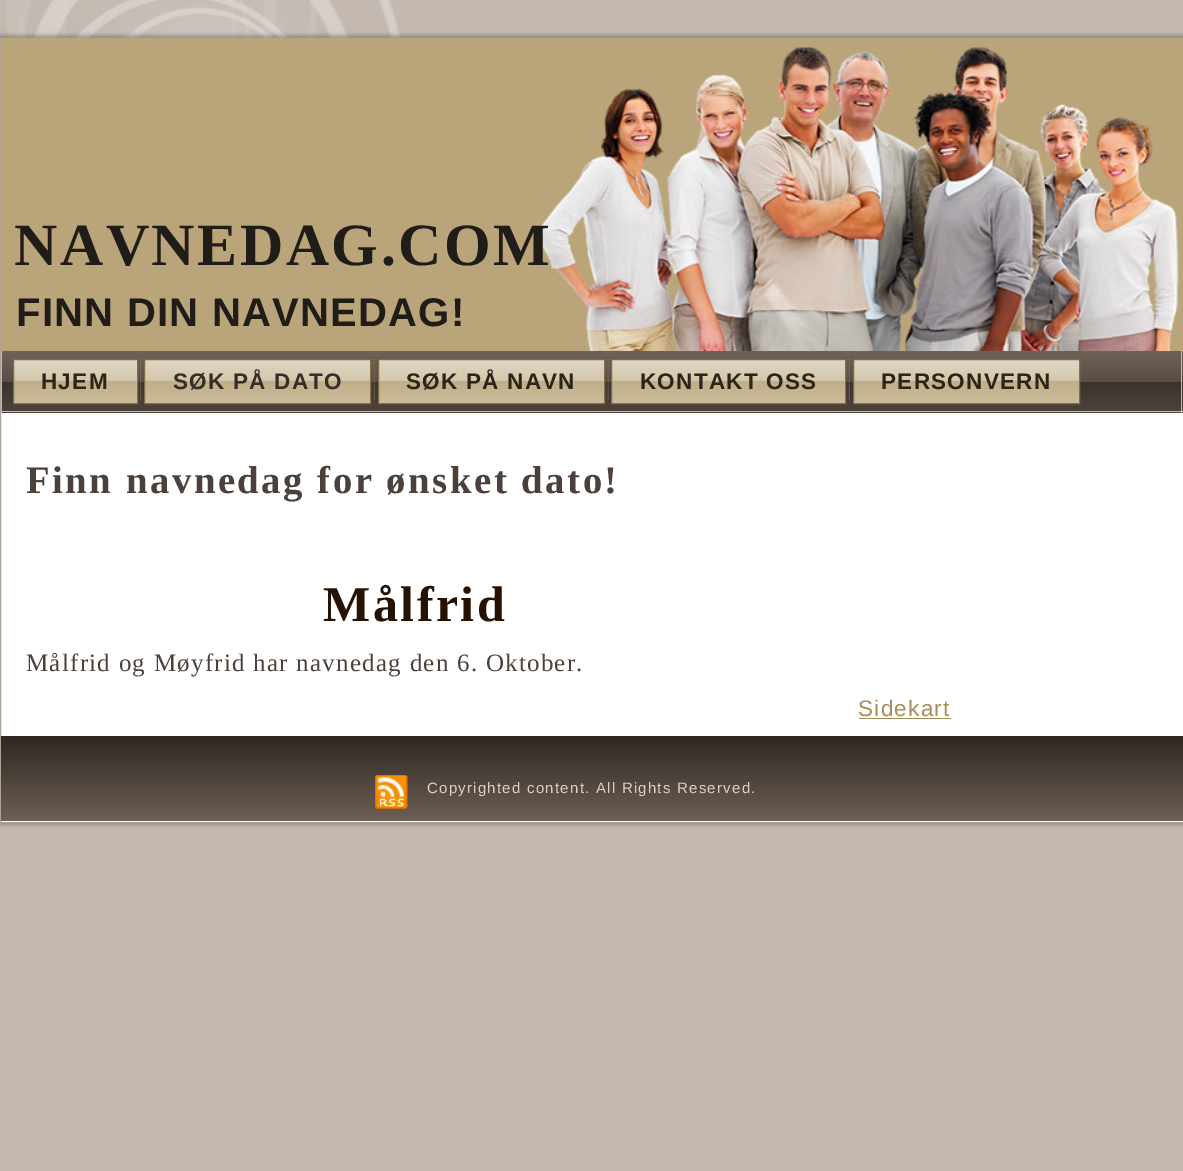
%!PS
<< /PageSize [1183 1171] /PageUsesTransparency true >> setpagedevice
/rgb { 3 { 255 div 3 1 roll } repeat setrgbcolor } def
/font { [ exch dup neg 0 0 3 -1 roll 0 0 ] selectfont } def
/alpha { dup .setfillconstantalpha .setstrokeconstantalpha } def
/roundrect { 5 dict begin { /r /h /w /y /x } { exch def } forall
  x r add y moveto x w add y 2 copy h add r arct x w add y h add x 1 index r arct
  x y h add x y r arct x y 2 copy exch w add exch r arct closepath end } def
/shadow { 12 dict begin { /a /b /q /h /w /y /x } { exch def } forall gsave /was 0 def
  9 -2 -9 { dup b mul 4 div /e exch def 1 sub .425 mul 2.718 exch exp 1 add a .99 .min exch div /now exch def
    1 1 now sub 1 was sub div sub alpha /was now def
    w h .min e 2 mul add 0 gt { x e sub y e sub w e 2 mul add h e 2 mul add
      q e add b .6 mul add w h .min 2 div e add .min 0 .max roundrect fill } if } for grestore end } def
/picture { 5 dict begin { /h /w /y /x /name } { exch def } forall
  gsave x y translate w h scale
  w h 8 [w 0 0 h 0 0] name (r) file false 3 colorimage grestore end } def
0 .pushpdf14devicefilter
0 1171 translate 1 -1 scale
4 setmiterlimit
195 185 177 rgb
0 0 1183 1171 rectfill
(img_01.rgb) 5 0 396 38 picture
0 0 0 rgb
-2 35 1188 790 0 2 0.25 shadow
255 255 255 rgb
1 413 1182 409 rectfill
175 162 151 rgb
0.5 38.5 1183 784 rectstroke
186 165 122 rgb
1 38 1182 313 rectfill
(img_02.rgb) 537 47 642 304 picture
gsave 2 351 moveto 1181 0 rlineto 0 62 rlineto -1181 0 rlineto closepath clip newpath
<< /ShadingType 2 /ColorSpace /DeviceRGB /Coords [592 351 592 413] /Extend [true true] /Function << /FunctionType 3 /Domain [0 1] /Functions [<< /FunctionType 2 /Domain [0 1] /C0 [0.439 0.384 0.341] /C1 [0.349 0.306 0.271] /N 1 >> << /FunctionType 2 /Domain [0 1] /C0 [0.227 0.196 0.173] /C1 [0.306 0.267 0.235] /N 1 >>] /Bounds [0.5] /Encode [0 1 0 1] >> >> shfill grestore
195 185 177 rgb
1181 351 1 62 rectfill
1 411 1182 1 rectfill
1 351 1 62 rectfill
gsave 14 360 moveto 123 0 rlineto 0 43 rlineto -123 0 rlineto closepath clip newpath
<< /ShadingType 2 /ColorSpace /DeviceRGB /Coords [75 359 75 404] /Extend [true true] /Function << /FunctionType 3 /Domain [0 1] /Functions [<< /FunctionType 2 /Domain [0 1] /C0 [0.882 0.851 0.776] /C1 [0.827 0.776 0.671] /N 1 >> << /FunctionType 2 /Domain [0 1] /C0 [0.753 0.682 0.529] /C1 [0.8 0.741 0.62] /N 1 >>] /Bounds [0.5] /Encode [0 1 0 1] >> >> shfill grestore
130 111 69 rgb
13.5 359.5 124 44 rectstroke
(img_03.rgb) 140 358 2 43 picture
gsave 145 360 moveto 225 0 rlineto 0 43 rlineto -225 0 rlineto closepath clip newpath
<< /ShadingType 2 /ColorSpace /DeviceRGB /Coords [258 359 258 404] /Extend [true true] /Function << /FunctionType 3 /Domain [0 1] /Functions [<< /FunctionType 2 /Domain [0 1] /C0 [0.882 0.851 0.776] /C1 [0.827 0.776 0.671] /N 1 >> << /FunctionType 2 /Domain [0 1] /C0 [0.753 0.682 0.529] /C1 [0.8 0.741 0.62] /N 1 >>] /Bounds [0.5] /Encode [0 1 0 1] >> >> shfill grestore
144.5 359.5 226 44 rectstroke
(img_04.rgb) 373 358 2 43 picture
gsave 379 360 moveto 225 0 rlineto 0 43 rlineto -225 0 rlineto closepath clip newpath
<< /ShadingType 2 /ColorSpace /DeviceRGB /Coords [491 359 491 404] /Extend [true true] /Function << /FunctionType 3 /Domain [0 1] /Functions [<< /FunctionType 2 /Domain [0 1] /C0 [0.882 0.851 0.776] /C1 [0.827 0.776 0.671] /N 1 >> << /FunctionType 2 /Domain [0 1] /C0 [0.753 0.682 0.529] /C1 [0.8 0.741 0.62] /N 1 >>] /Bounds [0.5] /Encode [0 1 0 1] >> >> shfill grestore
378.5 359.5 226 44 rectstroke
(img_05.rgb) 607 358 2 43 picture
gsave 612 360 moveto 233 0 rlineto 0 43 rlineto -233 0 rlineto closepath clip newpath
<< /ShadingType 2 /ColorSpace /DeviceRGB /Coords [729 359 729 404] /Extend [true true] /Function << /FunctionType 3 /Domain [0 1] /Functions [<< /FunctionType 2 /Domain [0 1] /C0 [0.882 0.851 0.776] /C1 [0.827 0.776 0.671] /N 1 >> << /FunctionType 2 /Domain [0 1] /C0 [0.753 0.682 0.529] /C1 [0.8 0.741 0.62] /N 1 >>] /Bounds [0.5] /Encode [0 1 0 1] >> >> shfill grestore
611.5 359.5 234 44 rectstroke
(img_04.rgb) 848 358 2 43 picture
gsave 854 360 moveto 225 0 rlineto 0 43 rlineto -225 0 rlineto closepath clip newpath
<< /ShadingType 2 /ColorSpace /DeviceRGB /Coords [966 359 966 404] /Extend [true true] /Function << /FunctionType 3 /Domain [0 1] /Functions [<< /FunctionType 2 /Domain [0 1] /C0 [0.882 0.851 0.776] /C1 [0.827 0.776 0.671] /N 1 >> << /FunctionType 2 /Domain [0 1] /C0 [0.753 0.682 0.529] /C1 [0.8 0.741 0.62] /N 1 >>] /Bounds [0.5] /Encode [0 1 0 1] >> >> shfill grestore
853.5 359.5 226 44 rectstroke
167 142 88 rgb
859 718 92 1 rectfill
gsave 1 736 moveto 1182 0 rlineto 0 85 rlineto -1182 0 rlineto closepath clip newpath
<< /ShadingType 2 /ColorSpace /DeviceRGB /Coords [592 736 592 821] /Extend [true true] /Function << /FunctionType 2 /Domain [0 1] /C0 [0.18 0.157 0.137] /C1 [0.427 0.373 0.329] /N 1 >> >> shfill grestore
(img_06.rgb) 375 775 33 34 picture
/LiberationSerif-Bold 60 font
32 28 24 rgb
14 265 moveto 2.5 0 (NAVNEDAG.COM) ashow
/LiberationSans-Bold 40 font
16 326 moveto 1.25 0 (FINN DIN NAVNEDAG!) ashow
/LiberationSans-Bold 22.5 font
43 37 23 rgb
41 389 moveto 1.25 0 (HJEM) ashow
52 45 40 rgb
173 389 moveto 1.25 0 (SØK PÅ DATO) ashow
43 37 23 rgb
406 389 moveto 1.25 0 (SØK PÅ NAVN) ashow
640 389 moveto 1.25 0 (KONTAKT OSS) ashow
881 389 moveto 1.25 0 (PERSONVERN) ashow
/LiberationSerif-Bold 38.75 font
75 65 58 rgb
26 493 moveto 2.5 0 (Finn navnedag for ønsket dato!) ashow
/LiberationSerif-Bold 50 font
37 18 3 rgb
323 621 moveto 2.5 0 (Målfrid) ashow
/LiberationSerif-Regular 25 font
75 65 58 rgb
26 671 moveto 1.25 0 (Målfrid og Møyfrid har navnedag den 6. Oktober.) ashow
/LiberationSans-Regular 22.5 font
167 142 88 rgb
858 716 moveto 1.25 0 (Sidekart) ashow
/LiberationSans-Regular 15 font
220 210 188 rgb
427 793 moveto 1.25 0 (Copyrighted content. All Rights Reserved.) ashow
.poppdf14devicefilter showpage
